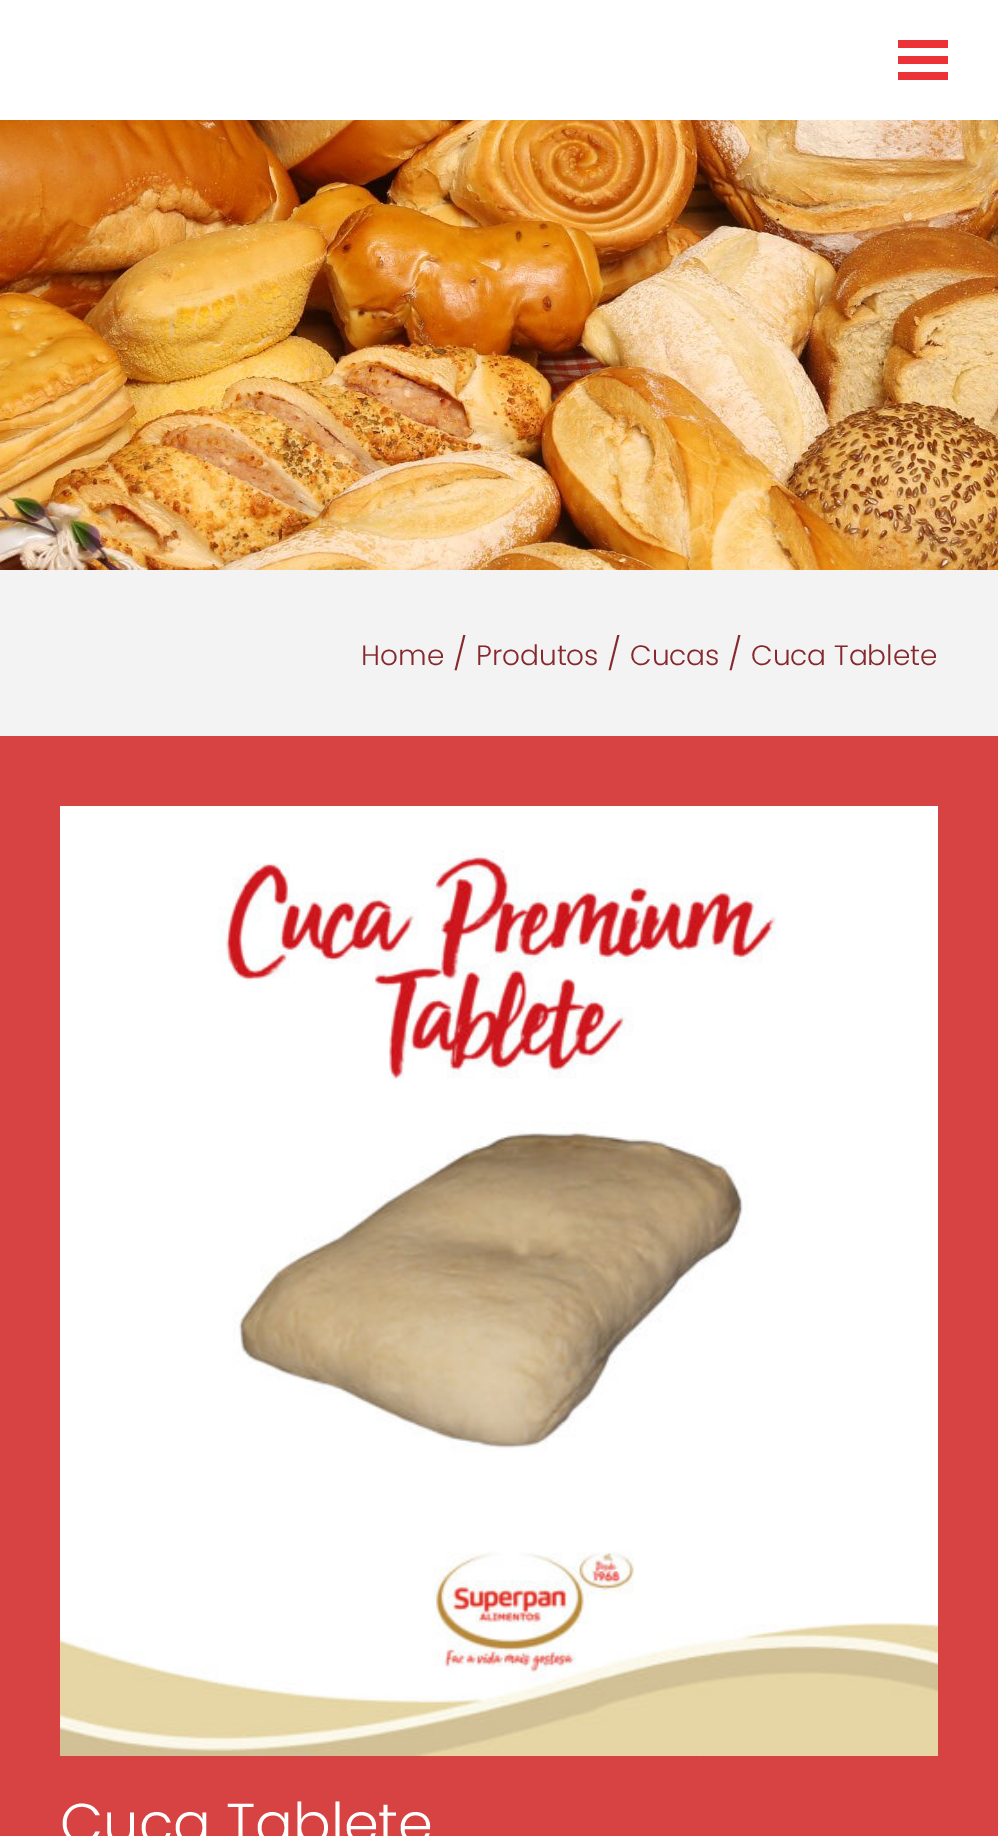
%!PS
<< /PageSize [998 1836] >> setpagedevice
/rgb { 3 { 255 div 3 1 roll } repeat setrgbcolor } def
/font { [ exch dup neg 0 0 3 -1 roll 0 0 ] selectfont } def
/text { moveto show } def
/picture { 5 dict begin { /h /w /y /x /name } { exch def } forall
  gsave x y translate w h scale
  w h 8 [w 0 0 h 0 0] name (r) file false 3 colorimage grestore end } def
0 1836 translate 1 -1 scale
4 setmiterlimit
243 243 243 rgb
0 0 998 1836 rectfill
255 255 255 rgb
0 0 998 120 rectfill
237 50 55 rgb
898 40 50 8 rectfill
898 56 50 8 rectfill
898 72 50 8 rectfill
(img_01.rgb) 0 120 998 450 picture
215 67 67 rgb
0 736 998 1100 rectfill
(img_02.rgb) 60 806 878 950 picture
/Poppins-Light 28 font
133 41 44 rgb
(Home) 361 665 text
/Poppins-Light 32 font
(/) 453 665 text
/Poppins-Light 28 font
(Produtos) 476 665 text
/Poppins-Light 32 font
(/) 607 665 text
/Poppins-Light 28 font
(Cucas) 630 665 text
/Poppins-Light 32 font
(/) 728 665 text
/Poppins-Light 28 font
(Cuca Tablete) 751 665 text
/Poppins-Light 56 font
255 255 255 rgb
(Cuca Tablete) 60 1843 text
showpage
